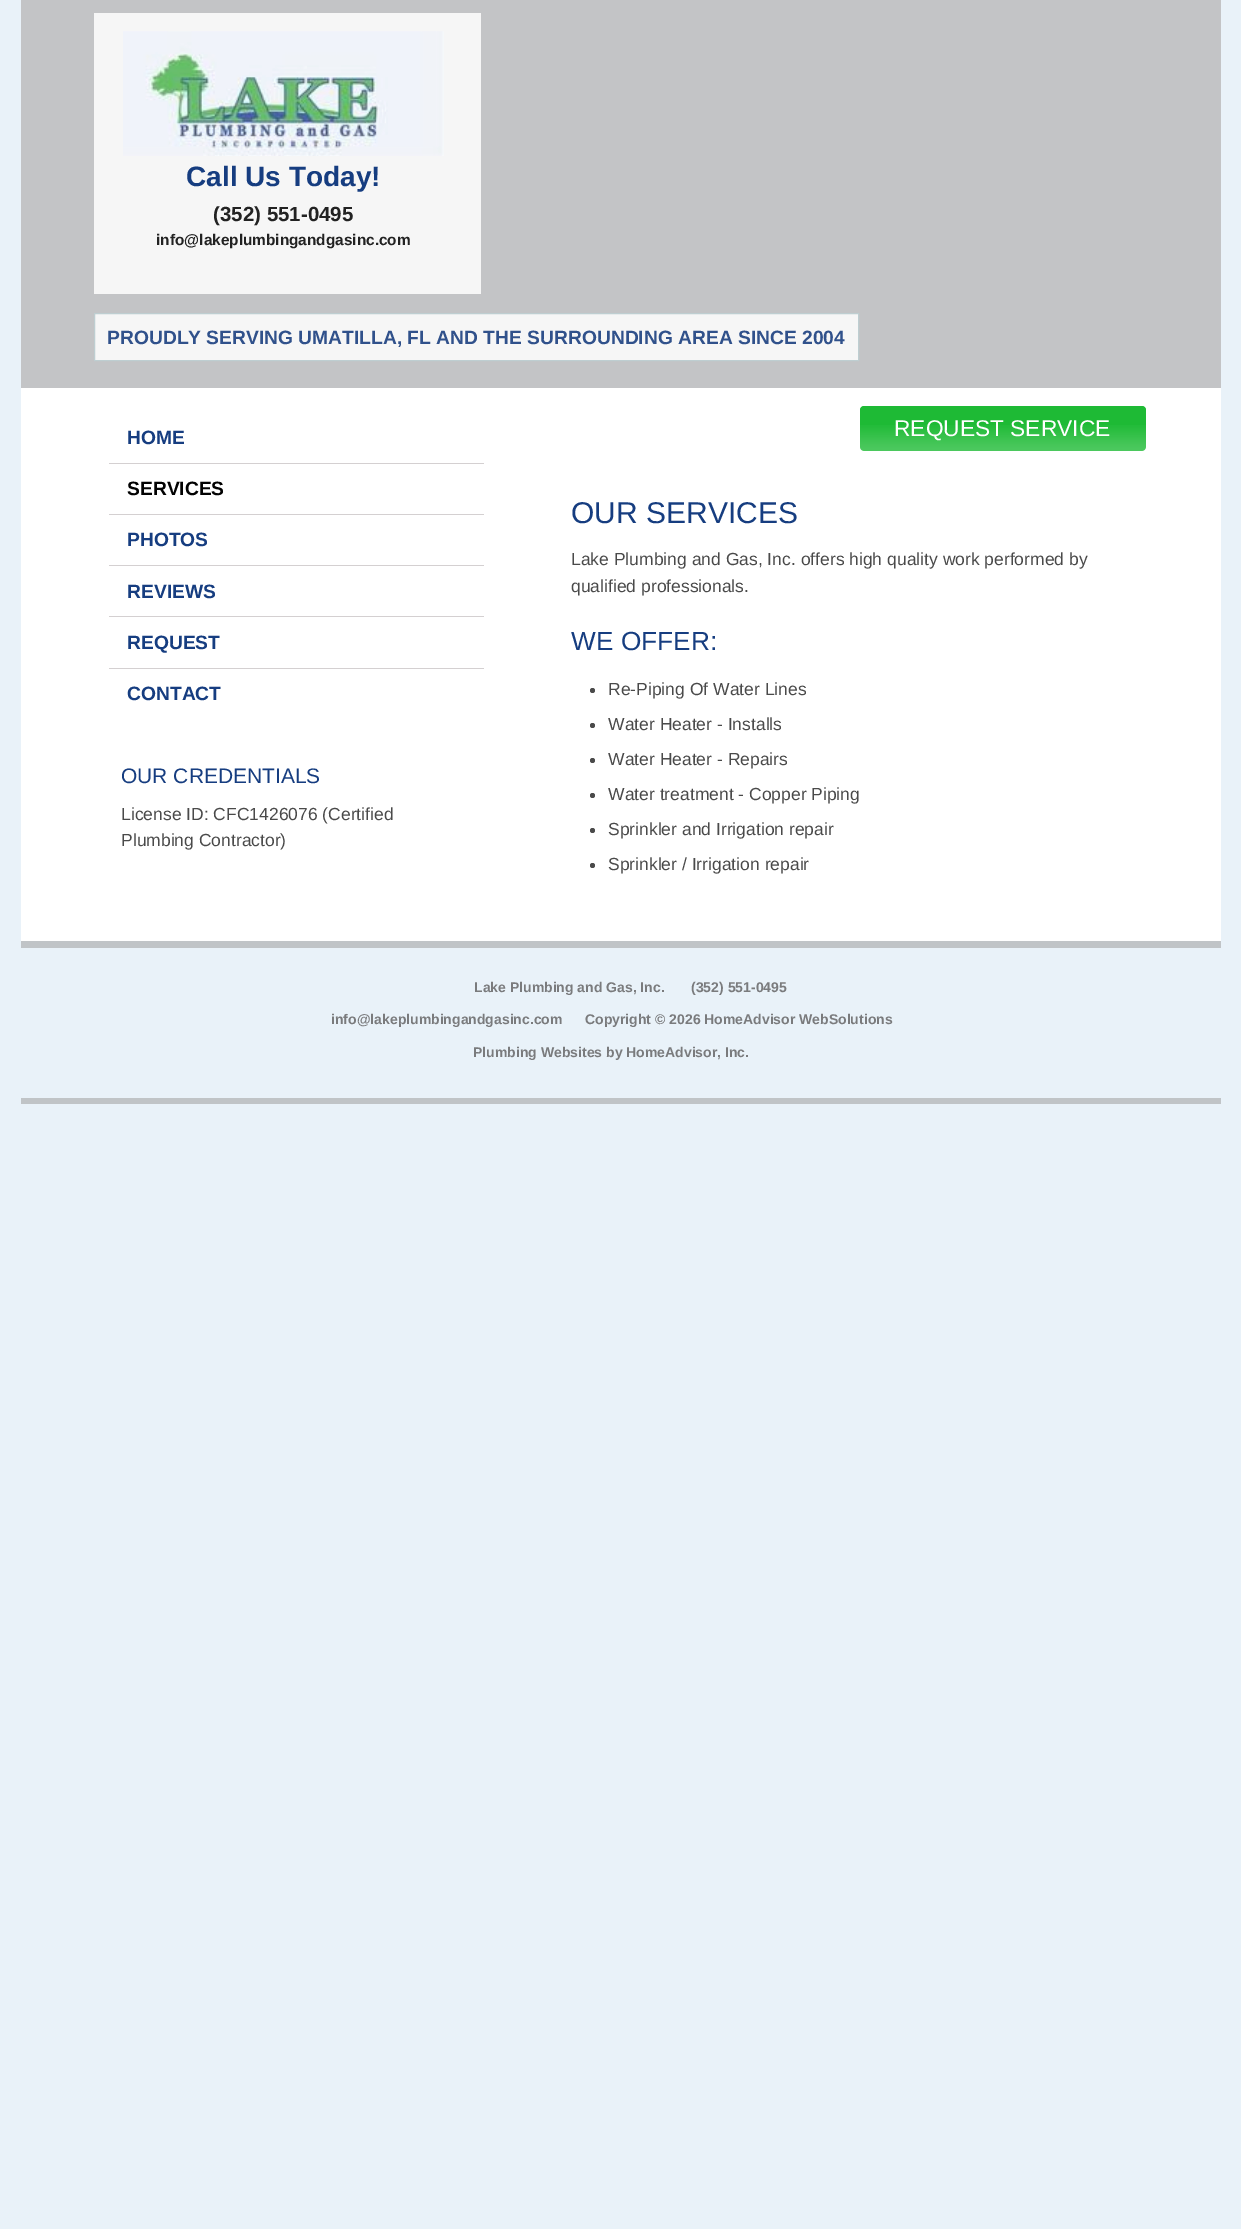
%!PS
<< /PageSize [1241 2229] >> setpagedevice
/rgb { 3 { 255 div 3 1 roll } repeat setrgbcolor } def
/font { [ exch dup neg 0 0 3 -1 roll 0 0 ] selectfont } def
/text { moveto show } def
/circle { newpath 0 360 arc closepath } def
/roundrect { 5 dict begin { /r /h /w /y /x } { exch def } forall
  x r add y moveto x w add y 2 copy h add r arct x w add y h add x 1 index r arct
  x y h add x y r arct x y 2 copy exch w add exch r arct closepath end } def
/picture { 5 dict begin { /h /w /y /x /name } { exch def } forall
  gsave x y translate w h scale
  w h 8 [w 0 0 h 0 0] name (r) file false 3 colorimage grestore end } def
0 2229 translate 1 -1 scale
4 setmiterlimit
233 242 249 rgb
0 0 1241 2229 rectfill
255 255 255 rgb
21 388 1200 553 rectfill
195 196 198 rgb
21 0 1200 388 rectfill
246 246 246 rgb
94 13 387 281 rectfill
(img_01.rgb) 123 31 321 125 picture
94.5 313.5 moveto 764 0 rlineto 0 47 rlineto -764 0 rlineto closepath gsave fill grestore
190 206 209 rgb
stroke
30 186 53 rgb
860 406 286 45 4 roundrect fill
(img_02.rgb) 860 425 286 26 picture
212 208 209 rgb
109 463 375 1 rectfill
109 514 375 1 rectfill
109 565 375 1 rectfill
109 616 375 1 rectfill
109 668 375 1 rectfill
74 74 74 rgb
592.5 690.5 2.5 circle fill
592.5 725.5 2.5 circle fill
592.5 760.5 2.5 circle fill
592.5 795.5 2.5 circle fill
592.5 830.5 2.5 circle fill
592.5 865.5 2.5 circle fill
192 196 199 rgb
21 941 1200 7 rectfill
21 1098 1200 6 rectfill
/LiberationSans-Bold 28 font
22 61 128 rgb
(Call Us Today!) 186 186 text
/LiberationSans-Bold 20.5 font
34 34 34 rgb
(\(352\) 551-0495) 213 221 text
/LiberationSans-Bold 15.4 font
(info@lakeplumbingandgasinc.com) 156 245 text
/LiberationSans-Bold 19.25 font
48 81 139 rgb
(PROUDLY SERVING UMATILLA, FL AND THE SURROUNDING AREA SINCE 2004) 107 344 text
/LiberationSans-Regular 22.75 font
255 255 255 rgb
(REQUEST SERVICE) 894 436 text
/LiberationSans-Bold 19.25 font
22 61 128 rgb
(HOME) 127 444 text
2 2 2 rgb
(SERVICES) 127 495 text
22 61 128 rgb
(PHOTOS) 127 546 text
(REVIEWS) 127 598 text
(REQUEST) 127 649 text
(CONTACT) 127 700 text
/LiberationSans-Regular 21 font
(OUR CREDENTIALS) 121 783 text
/LiberationSans-Regular 17.5 font
74 74 74 rgb
(License ID: CFC1426076 \(Certified) 121 820 text
(Plumbing Contractor\)) 121 846 text
/LiberationSans-Regular 30 font
22 61 128 rgb
(OUR SERVICES) 571 523 text
/LiberationSans-Regular 17.5 font
74 74 74 rgb
(Lake Plumbing and Gas, Inc. offers high quality work performed by) 571 565 text
(qualified professionals.) 571 592 text
/LiberationSans-Regular 26.25 font
22 61 128 rgb
(WE OFFER:) 571 650 text
/LiberationSans-Regular 17.5 font
74 74 74 rgb
(Re-Piping Of Water Lines) 608 695 text
(Water Heater - Installs) 608 730 text
(Water Heater - Repairs) 608 765 text
(Water treatment - Copper Piping) 608 800 text
(Sprinkler and Irrigation repair) 608 835 text
(Sprinkler / Irrigation repair) 608 870 text
/LiberationSans-Bold 14 font
122 123 125 rgb
(Lake Plumbing and Gas, Inc.) 474 992 text
(\(352\) 551-0495) 691 992 text
(info@lakeplumbingandgasinc.com) 331 1024 text
(Copyright © 2026 HomeAdvisor WebSolutions) 585 1024 text
(Plumbing Websites by HomeAdvisor, Inc.) 473 1057 text
showpage
